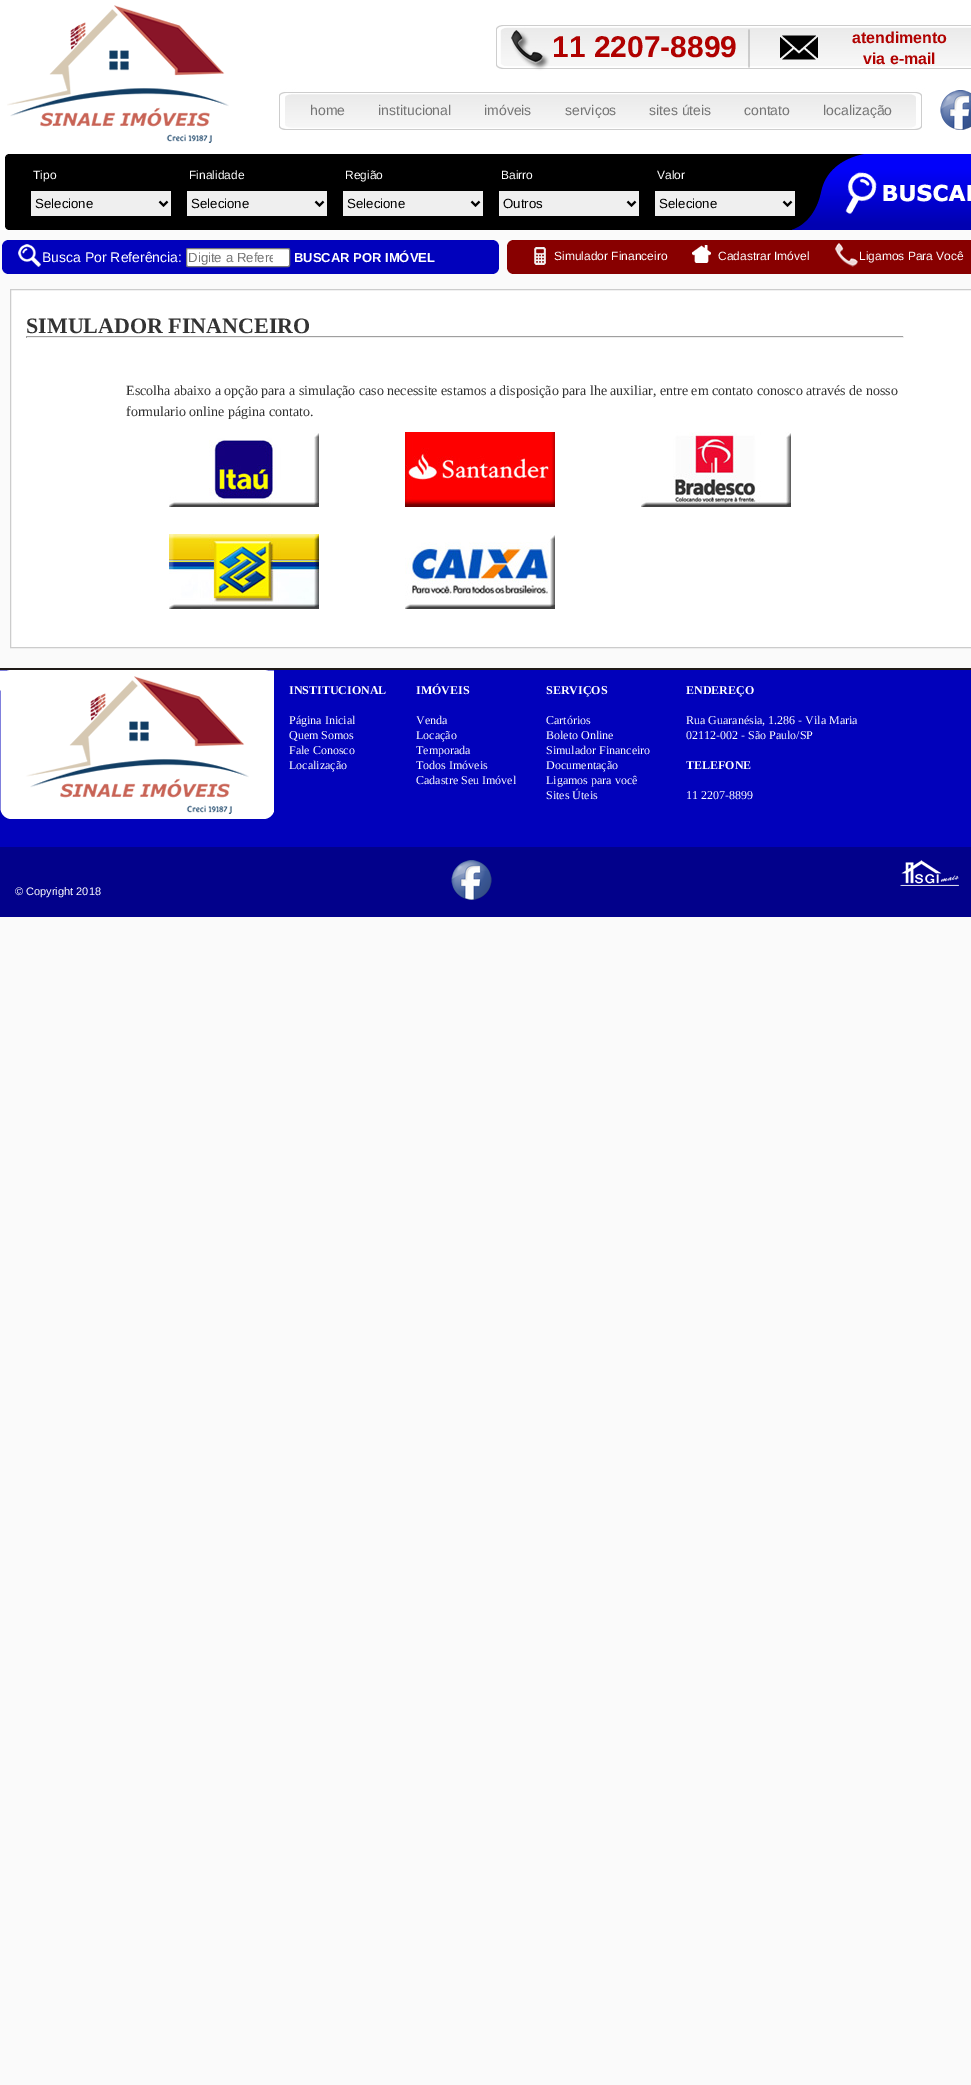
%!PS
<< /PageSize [971 2085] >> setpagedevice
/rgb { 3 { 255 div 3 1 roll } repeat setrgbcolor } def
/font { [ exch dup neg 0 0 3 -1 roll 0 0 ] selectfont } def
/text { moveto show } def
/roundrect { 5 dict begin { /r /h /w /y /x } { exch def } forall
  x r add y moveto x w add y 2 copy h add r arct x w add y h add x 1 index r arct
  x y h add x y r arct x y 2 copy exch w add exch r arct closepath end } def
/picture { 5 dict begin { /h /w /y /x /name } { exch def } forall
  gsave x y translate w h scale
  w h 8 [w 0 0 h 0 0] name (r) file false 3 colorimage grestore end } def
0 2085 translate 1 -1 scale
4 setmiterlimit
250 250 250 rgb
0 0 971 2085 rectfill
255 255 255 rgb
0 0 971 230 rectfill
(img_01.rgb) 279 25 692 105 picture
(img_02.rgb) 7 5 222 138 picture
(img_03.rgb) 940 90 31 40 picture
(img_04.rgb) 5 154 966 76 picture
239 239 239 rgb
31 191 140 25 rectfill
0 0 0 rgb
2 setlinewidth
159.5 201.5 moveto 4 4 rlineto 4 -4 rlineto stroke
239 239 239 rgb
187 191 140 25 rectfill
0 0 0 rgb
315.5 201.5 moveto 4 4 rlineto 4 -4 rlineto stroke
239 239 239 rgb
343 191 140 25 rectfill
0 0 0 rgb
471.5 201.5 moveto 4 4 rlineto 4 -4 rlineto stroke
239 239 239 rgb
499 191 140 25 rectfill
0 0 0 rgb
627.5 201.5 moveto 4 4 rlineto 4 -4 rlineto stroke
239 239 239 rgb
655 191 140 25 rectfill
0 0 0 rgb
783.5 201.5 moveto 4 4 rlineto 4 -4 rlineto stroke
(img_05.rgb) 2 240 497 34 picture
255 255 255 rgb
186.5 248.5 103 18 1.5 roundrect gsave fill grestore
118 118 118 rgb
1 setlinewidth
stroke
(img_06.rgb) 507 240 464 34 picture
255 255 255 rgb
10.5 289.5 moveto 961 0 rlineto 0 358 rlineto -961 0 rlineto closepath gsave fill grestore
204 204 204 rgb
stroke
159 159 159 rgb
26 336 878 1 rectfill
238 238 238 rgb
903 336 1 2 rectfill
26 337 878 1 rectfill
159 159 159 rgb
26 336 1 2 rectfill
(img_07.rgb) 169 433 150 74 picture
(img_08.rgb) 405 432 150 75 picture
(img_09.rgb) 641 432 150 75 picture
(img_10.rgb) 169 534 150 75 picture
(img_11.rgb) 405 535 150 74 picture
(img_12.rgb) 0 668 971 249 picture
(img_13.rgb) 0 670 274 149 picture
(img_14.rgb) 451 860 41 40 picture
(img_15.rgb) 900 860 59 26 picture
/LiberationSans-Bold 30 font
176 1 0 rgb
(11 2207-8899) 552 57 text
/LiberationSans-Bold 16 font
(atendimento) 852 43 text
(via e-mail) 863 64 text
/LiberationSans-Regular 14 font
117 117 117 rgb
(home) 310 115 text
(institucional) 378 115 text
(imóveis) 484 115 text
(serviços) 565 115 text
(sites úteis) 649 115 text
(contato) 744 115 text
(localização) 823 115 text
/LiberationSans-Regular 12 font
255 255 255 rgb
(Tipo) 33 179 text
/LiberationSans-Regular 13.25 font
0 0 0 rgb
(Selecione) 35 208 text
/LiberationSans-Regular 12 font
255 255 255 rgb
(Finalidade) 189 179 text
/LiberationSans-Regular 13.25 font
0 0 0 rgb
(Selecione) 191 208 text
/LiberationSans-Regular 12 font
255 255 255 rgb
(Região) 345 179 text
/LiberationSans-Regular 13.25 font
0 0 0 rgb
(Selecione) 347 208 text
/LiberationSans-Regular 12 font
255 255 255 rgb
(Bairro) 501 179 text
/LiberationSans-Regular 13.25 font
0 0 0 rgb
(Outros) 503 208 text
/LiberationSans-Regular 12 font
255 255 255 rgb
(Valor) 657 179 text
/LiberationSans-Regular 13.25 font
0 0 0 rgb
(Selecione) 659 208 text
/LiberationSans-Regular 14 font
255 255 255 rgb
(Busca Por Referência:) 42 262 text
gsave
188 250 85 15 rectclip
/LiberationSans-Regular 13.25 font
117 117 117 rgb
(Digite a Refere) 188 262 text
grestore
/LiberationSans-Bold 13 font
(BUSCAR POR IMÓVEL) 294 262 text
/LiberationSans-Regular 12 font
(Simulador Financeiro) 554 260 text
(Cadastrar Imóvel) 718 260 text
(Ligamos Para Você) 859 260 text
/LiberationSerif-Bold 22 font
51 51 51 rgb
(SIMULADOR FINANCEIRO) 26 333 text
/LiberationSerif-Regular 14 font
(Escolha abaixo a opção para a simulação caso necessite estamos a disposição para lhe auxiliar, entre em contato conosco através de nosso) 126 395 text
(formulario online página contato.) 126 416 text
/LiberationSerif-Bold 12 font
255 255 255 rgb
(INSTITUCIONAL) 289 694 text
/LiberationSerif-Regular 12 font
(Página Inicial) 289 724 text
(Quem Somos) 289 739 text
(Fale Conosco) 289 754 text
(Localização) 289 769 text
/LiberationSerif-Bold 12 font
(IMÓVEIS) 416 694 text
/LiberationSerif-Regular 12 font
(Venda) 416 724 text
(Locação) 416 739 text
(Temporada) 416 754 text
(Todos Imóveis) 416 769 text
(Cadastre Seu Imóvel) 416 784 text
/LiberationSerif-Bold 12 font
(SERVIÇOS) 546 694 text
/LiberationSerif-Regular 12 font
(Cartórios) 546 724 text
(Boleto Online) 546 739 text
(Simulador Financeiro) 546 754 text
(Documentação) 546 769 text
(Ligamos para você) 546 784 text
(Sites Úteis) 546 799 text
/LiberationSerif-Bold 12 font
(ENDEREÇO) 686 694 text
/LiberationSerif-Regular 12 font
(Rua Guaranésia, 1.286 - Vila Maria) 686 724 text
(02112-002 - São Paulo/SP) 686 739 text
/LiberationSerif-Bold 12 font
(TELEFONE) 686 769 text
/LiberationSerif-Regular 12 font
(11 2207-8899) 686 799 text
/LiberationSans-Regular 11 font
(© Copyright 2018) 15 895 text
showpage
